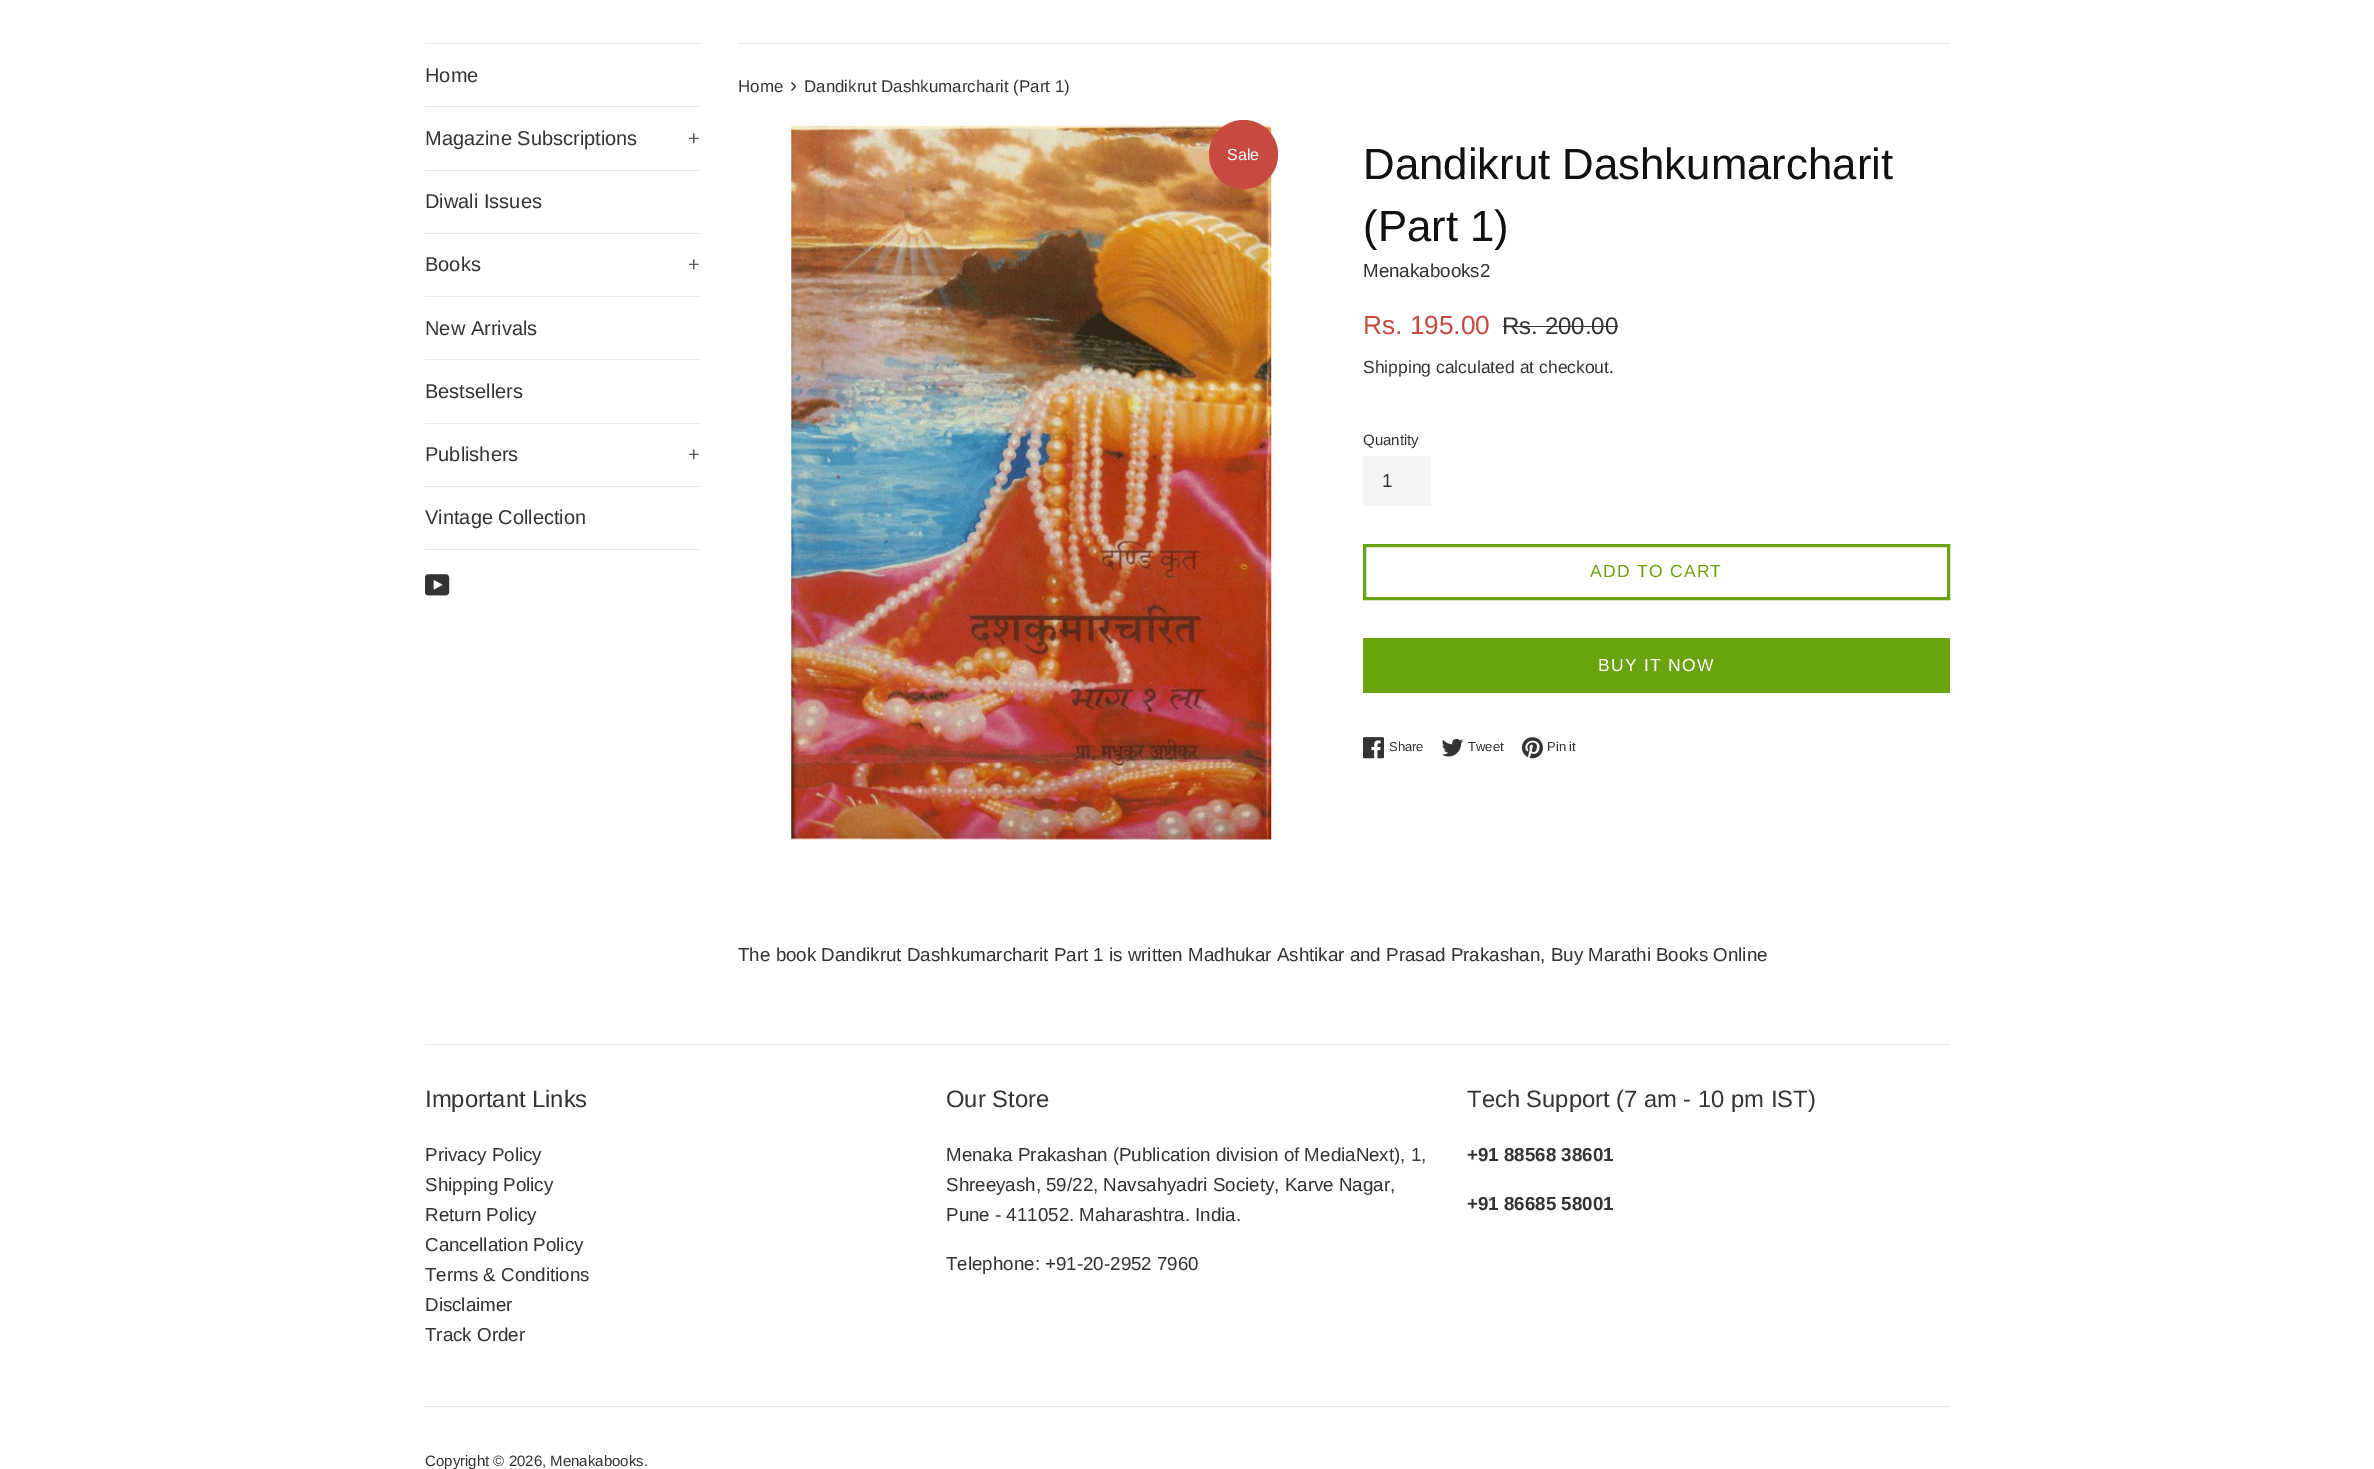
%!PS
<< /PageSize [2374 1469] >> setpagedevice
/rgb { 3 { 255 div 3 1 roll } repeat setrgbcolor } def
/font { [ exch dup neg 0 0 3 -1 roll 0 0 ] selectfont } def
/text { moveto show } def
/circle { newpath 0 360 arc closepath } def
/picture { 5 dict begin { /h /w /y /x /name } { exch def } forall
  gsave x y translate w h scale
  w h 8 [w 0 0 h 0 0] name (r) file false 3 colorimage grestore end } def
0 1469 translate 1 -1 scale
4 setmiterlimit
255 255 255 rgb
0 0 2374 1469 rectfill
232 232 232 rgb
425 43 275 1 rectfill
425 106 275 1 rectfill
425 170 275 1 rectfill
425 233 275 1 rectfill
425 296 275 1 rectfill
425 359 275 1 rectfill
425 423 275 1 rectfill
425 486 275 1 rectfill
425 549 275 1 rectfill
(img_01.rgb) 425 574 25 22 picture
738 43 1212 1 rectfill
(img_02.rgb) 791 125 481 715 picture
200 73 63 rgb
1243.5 154.5 34.5 circle fill
51 51 51 rgb
1503 326 115 1 rectfill
244 244 244 rgb
1363 456 68 50 rectfill
107 163 14 rgb
3 setlinewidth
1364.5 545.5 584 53 rectstroke
1363 638 587 55 rectfill
(img_03.rgb) 1363 737 21 22 picture
(img_04.rgb) 1441 738 23 19 picture
(img_05.rgb) 1521 737 22 22 picture
232 232 232 rgb
425 1044 1525 1 rectfill
425 1406 1525 1 rectfill
/LiberationSans-Regular 20 font
51 51 51 rgb
(Home) 425 82 text
(Magazine Subscriptions) 425 145 text
92 92 92 rgb
(+) 688 145 text
51 51 51 rgb
(Diwali Issues) 425 208 text
(Books) 425 271 text
92 92 92 rgb
(+) 688 271 text
51 51 51 rgb
(New Arrivals) 425 335 text
(Bestsellers) 425 398 text
(Publishers) 425 461 text
92 92 92 rgb
(+) 688 461 text
51 51 51 rgb
(Vintage Collection) 425 524 text
/LiberationSans-Regular 16.9 font
(Home) 738 92 text
/LiberationSans-Regular 21 font
(›) 790 92 text
/LiberationSans-Regular 16.9 font
(Dandikrut Dashkumarcharit \(Part 1\)) 804 92 text
/LiberationSans-Regular 16 font
255 255 255 rgb
(Sale) 1227 160 text
/LiberationSans-Regular 43.75 font
17 17 17 rgb
(Dandikrut Dashkumarcharit) 1363 179 text
(\(Part 1\)) 1363 241 text
/LiberationSans-Regular 18.75 font
51 51 51 rgb
(Menakabooks2) 1363 277 text
/LiberationSans-Regular 26.25 font
200 73 63 rgb
(Rs. 195.00) 1363 334 text
/LiberationSans-Regular 24 font
51 51 51 rgb
(Rs. 200.00) 1502 334 text
/LiberationSans-Regular 17.5 font
(Shipping calculated at checkout.) 1363 373 text
/LiberationSans-Regular 15 font
(Quantity) 1363 445 text
/LiberationSans-Regular 18.75 font
(1) 1382 487 text
/LiberationSans-Regular 17.5 font
107 163 14 rgb
1590 577 moveto 1.25 0 (ADD TO CART) ashow
255 255 255 rgb
1598 671 moveto 1.25 0 (BUY IT NOW) ashow
/LiberationSans-Regular 13 font
51 51 51 rgb
(Share) 1389 751 text
(Tweet) 1468 751 text
(Pin it) 1547 751 text
/LiberationSans-Regular 18.75 font
(The book Dandikrut Dashkumarcharit Part 1 is written Madhukar Ashtikar and Prasad Prakashan, Buy Marathi Books Online) 738 961 text
/LiberationSans-Regular 23.75 font
(Important Links) 425 1107 text
/LiberationSans-Regular 18.75 font
(Privacy Policy) 425 1161 text
(Shipping Policy) 425 1191 text
(Return Policy) 425 1221 text
(Cancellation Policy) 425 1251 text
(Terms & Conditions) 425 1281 text
(Disclaimer) 425 1311 text
(Track Order) 425 1341 text
/LiberationSans-Regular 23.75 font
(Our Store) 946 1107 text
/LiberationSans-Regular 18.75 font
(Menaka Prakashan \(Publication division of MediaNext\), 1,) 946 1161 text
(Shreeyash, 59/22, Navsahyadri Society, Karve Nagar,) 946 1191 text
(Pune - 411052. Maharashtra. India.) 946 1221 text
(Telephone: +91-20-2952 7960) 946 1270 text
/LiberationSans-Regular 23.75 font
(Tech Support \(7 am - 10 pm IST\)) 1467 1107 text
/LiberationSans-Bold 18.75 font
(+91 88568 38601) 1467 1161 text
(+91 86685 58001) 1467 1210 text
/LiberationSans-Regular 15 font
(Copyright © 2026, Menakabooks.) 425 1466 text
showpage
